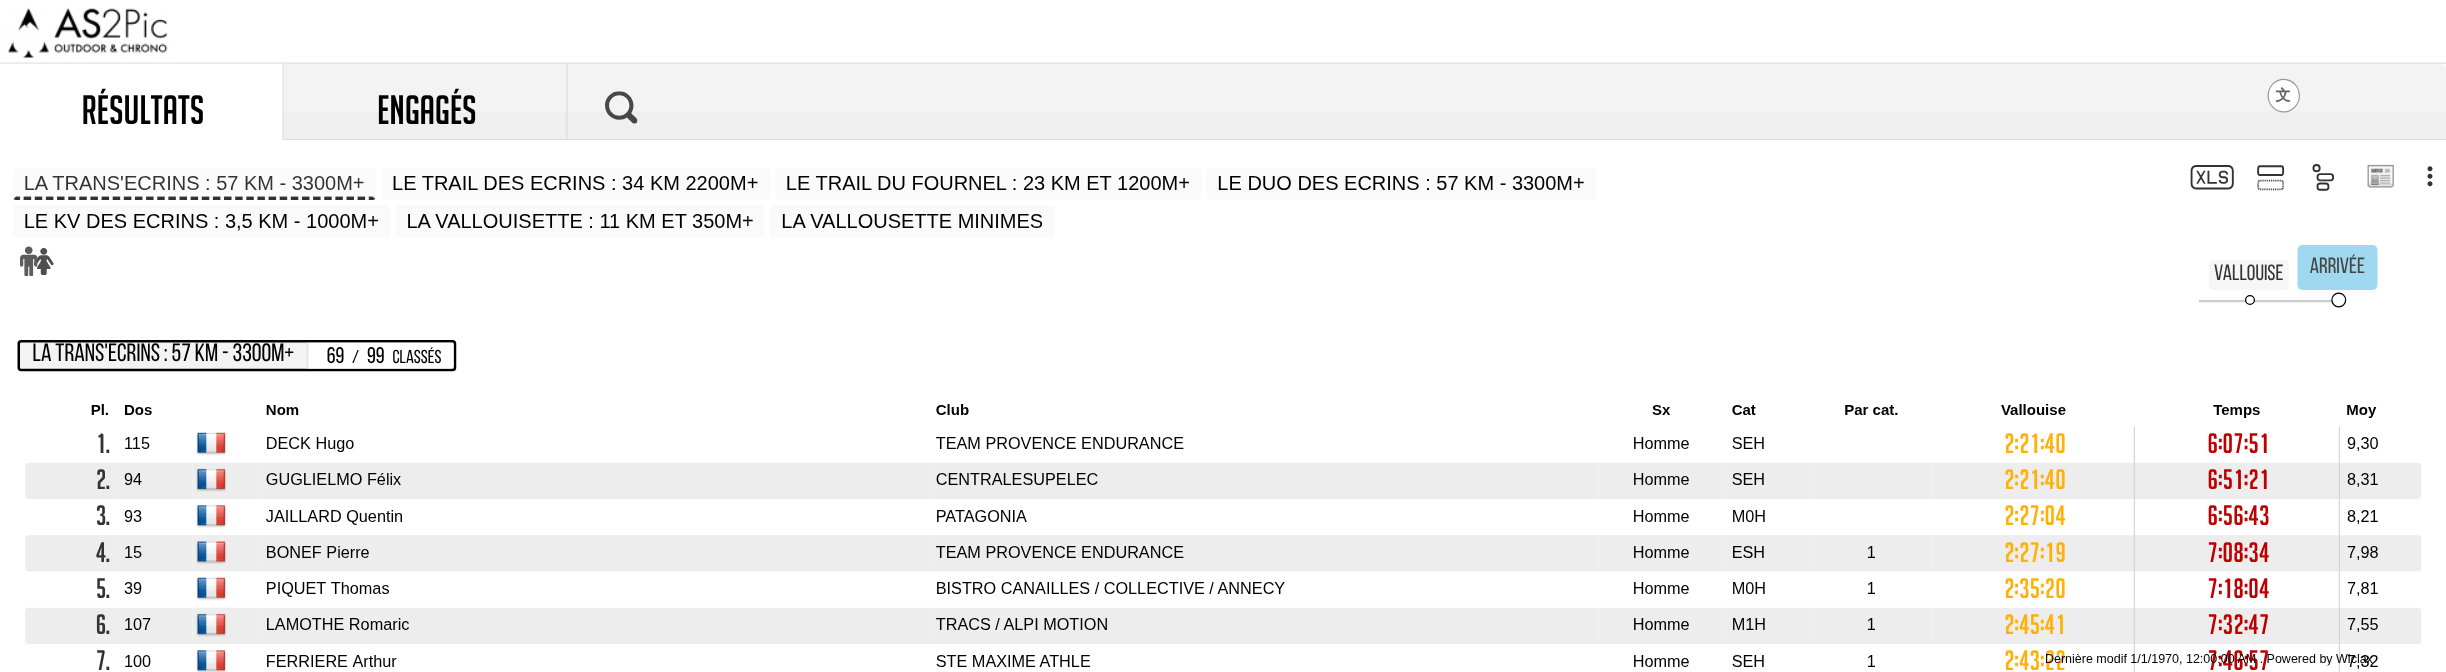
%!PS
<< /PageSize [2446 672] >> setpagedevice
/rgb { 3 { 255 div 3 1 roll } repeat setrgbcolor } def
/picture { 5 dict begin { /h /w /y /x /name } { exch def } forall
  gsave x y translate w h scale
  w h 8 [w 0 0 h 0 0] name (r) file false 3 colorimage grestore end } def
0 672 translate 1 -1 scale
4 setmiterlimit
255 255 255 rgb
0 0 2446 672 rectfill
(img_01.rgb) 0 7 2446 665 picture
showpage
